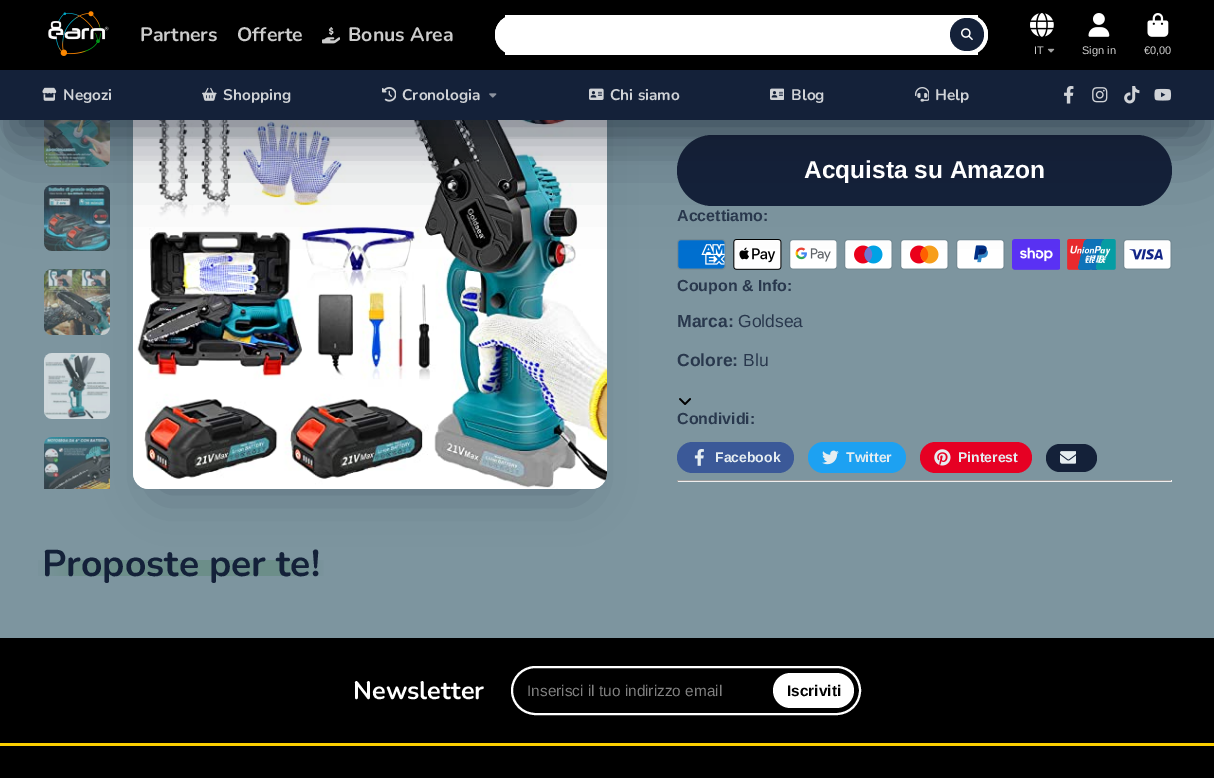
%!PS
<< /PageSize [1214 778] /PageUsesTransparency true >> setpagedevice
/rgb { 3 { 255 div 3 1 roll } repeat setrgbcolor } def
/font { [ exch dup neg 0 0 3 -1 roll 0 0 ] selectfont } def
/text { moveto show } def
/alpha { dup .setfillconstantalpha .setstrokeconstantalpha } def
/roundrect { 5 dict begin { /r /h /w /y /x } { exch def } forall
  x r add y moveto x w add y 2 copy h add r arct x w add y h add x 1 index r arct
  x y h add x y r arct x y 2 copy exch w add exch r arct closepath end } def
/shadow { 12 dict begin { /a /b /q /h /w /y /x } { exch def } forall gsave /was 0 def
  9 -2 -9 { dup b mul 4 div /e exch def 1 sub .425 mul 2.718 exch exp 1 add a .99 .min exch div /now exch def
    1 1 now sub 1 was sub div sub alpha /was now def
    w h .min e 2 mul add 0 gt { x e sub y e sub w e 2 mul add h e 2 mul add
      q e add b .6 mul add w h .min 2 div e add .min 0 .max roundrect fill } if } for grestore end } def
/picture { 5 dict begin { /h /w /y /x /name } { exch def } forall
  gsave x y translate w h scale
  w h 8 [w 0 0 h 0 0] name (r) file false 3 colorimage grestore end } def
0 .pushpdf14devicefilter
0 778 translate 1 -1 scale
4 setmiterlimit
125 149 159 rgb
0 0 1214 778 rectfill
(img_19.rgb) 44 120 66 47 picture
(img_20.rgb) 44 185 66 66 picture
(img_21.rgb) 44 269 66 66 picture
(img_22.rgb) 44 353 66 66 picture
(img_23.rgb) 44 437 66 52 picture
gsave 38 560 moveto 286 0 rlineto 0 16 rlineto -286 0 rlineto closepath clip newpath
<< /ShadingType 2 /ColorSpace /DeviceRGB /Coords [33 568 329 568] /Extend [true true] /Function << /FunctionType 3 /Domain [0 1] /Functions [<< /FunctionType 2 /Domain [0 1] /C0 [0.49 0.584 0.624] /C1 [0.424 0.557 0.537] /N 1 >> << /FunctionType 2 /Domain [0 1] /C0 [0.424 0.557 0.537] /C1 [0.424 0.557 0.537] /N 1 >> << /FunctionType 2 /Domain [0 1] /C0 [0.424 0.557 0.537] /C1 [0.49 0.584 0.624] /N 1 >>] /Bounds [0.15 0.85] /Encode [0 1 0 1 0 1] >> >> shfill grestore
13 22 38 rgb
159 68 422 421 0 26 0.3 shadow
(img_24.rgb) 133 120 474 369 picture
20 33 57 rgb
677 135 495 71 35.5 roundrect fill
13 22 38 rgb
14 40 1186 92 0 19 0.4 shadow
(img_25.rgb) 677 239 49 31 picture
(img_26.rgb) 733 239 49 31 picture
(img_27.rgb) 789 239 48 31 picture
(img_28.rgb) 844 239 49 31 picture
(img_29.rgb) 900 239 49 31 picture
(img_30.rgb) 956 239 49 31 picture
(img_31.rgb) 1012 239 48 31 picture
(img_32.rgb) 1067 239 49 31 picture
(img_33.rgb) 1123 239 49 31 picture
14 58 1186 92 0 44 0.3 shadow
0 0 0 rgb
0 0 1214 70 rectfill
(img_01.rgb) 48 11 61 45 picture
(img_02.rgb) 322 27 18 17 picture
255 255 255 rgb
495 15 493 40 20 roundrect fill
505 15 473 40 rectfill
495 15 493 39 19.5 roundrect fill
20 33 57 rgb
950 18 34 33 16.5 roundrect fill
(img_03.rgb) 961 28 12 12 picture
(img_04.rgb) 1030 13 24 24 picture
(img_05.rgb) 1047 48 8 5 picture
(img_06.rgb) 1088 13 22 24 picture
(img_07.rgb) 1147 13 22 24 picture
0 70 1214 50 rectfill
(img_08.rgb) 42 87 15 14 picture
(img_09.rgb) 202 87 15 14 picture
(img_10.rgb) 382 87 14 15 picture
(img_11.rgb) 489 93 8 5 picture
(img_12.rgb) 589 88 15 12 picture
(img_13.rgb) 770 88 14 12 picture
(img_14.rgb) 915 87 14 15 picture
(img_15.rgb) 1064 86 10 18 picture
(img_16.rgb) 1092 87 16 16 picture
(img_17.rgb) 1124 86 16 18 picture
(img_18.rgb) 1154 88 18 13 picture
(img_34.rgb) 679 398 12 7 picture
59 89 152 rgb
677 442 117 31 15.5 roundrect fill
(img_35.rgb) 694 449 10 17 picture
29 161 242 rgb
808 442 98 31 15.5 roundrect fill
(img_36.rgb) 822 450 17 15 picture
230 0 35 rgb
920 442 112 31 15.5 roundrect fill
(img_37.rgb) 934 449 17 17 picture
20 33 57 rgb
1046 444 51 28 14 roundrect fill
(img_38.rgb) 1060 451 16 13 picture
159 159 159 rgb
677 480 495 1 rectfill
238 238 238 rgb
1171 480 1 2 rectfill
677 481 495 1 rectfill
159 159 159 rgb
677 480 1 2 rectfill
0 0 0 rgb
0 638 1214 105 rectfill
255 255 255 rgb
2 setlinewidth
512 667 348 47 23.5 roundrect stroke
773 673 81 35 17.5 roundrect fill
0 0 0 rgb
0 746 1214 32 rectfill
251 207 0 rgb
0 743 1214 3 rectfill
/Nunito-Bold 19.5 font
204 204 204 rgb
(Partners) 140 41 text
(Offerte) 237 41 text
(Bonus Area) 348 41 text
/LiberationSans-Regular 11 font
(IT) 1034 54 text
(Sign in) 1082 54 text
(€0,00) 1144 54 text
/Nunito-Bold 15.4 font
208 211 215 rgb
(Negozi) 63 100 text
(Shopping) 223 100 text
(Cronologia) 402 100 text
(Chi siamo) 610 100 text
(Blog) 791 100 text
(Help) 935 100 text
/LiberationSans-Bold 24.5 font
255 255 255 rgb
(Acquista su Amazon) 804 178 text
/LiberationSans-Bold 16 font
41 56 77 rgb
(Accettiamo:) 677 221 text
(Coupon & Info:) 677 291 text
/LiberationSans-Bold 17.5 font
(Marca:) 677 327 text
/LiberationSans-Regular 17.5 font
(Goldsea) 738 327 text
/LiberationSans-Bold 17.5 font
(Colore:) 677 366 text
/LiberationSans-Regular 17.5 font
(Blu) 743 366 text
/LiberationSans-Bold 16 font
(Condividi:) 677 424 text
/LiberationSans-Bold 14 font
229 237 241 rgb
(Facebook) 715 462 text
(Twitter) 846 462 text
(Pinterest) 958 462 text
/Nunito-Bold 37.25 font
20 33 57 rgb
(Proposte per te!) 42 576 text
/Nunito-Bold 25.25 font
255 255 255 rgb
(Newsletter) 353 699 text
/LiberationSans-Regular 15.4 font
128 128 128 rgb
(Inserisci il tuo indirizzo email) 527 696 text
/LiberationSans-Bold 15.4 font
0 0 0 rgb
(Iscriviti) 787 696 text
.poppdf14devicefilter showpage
